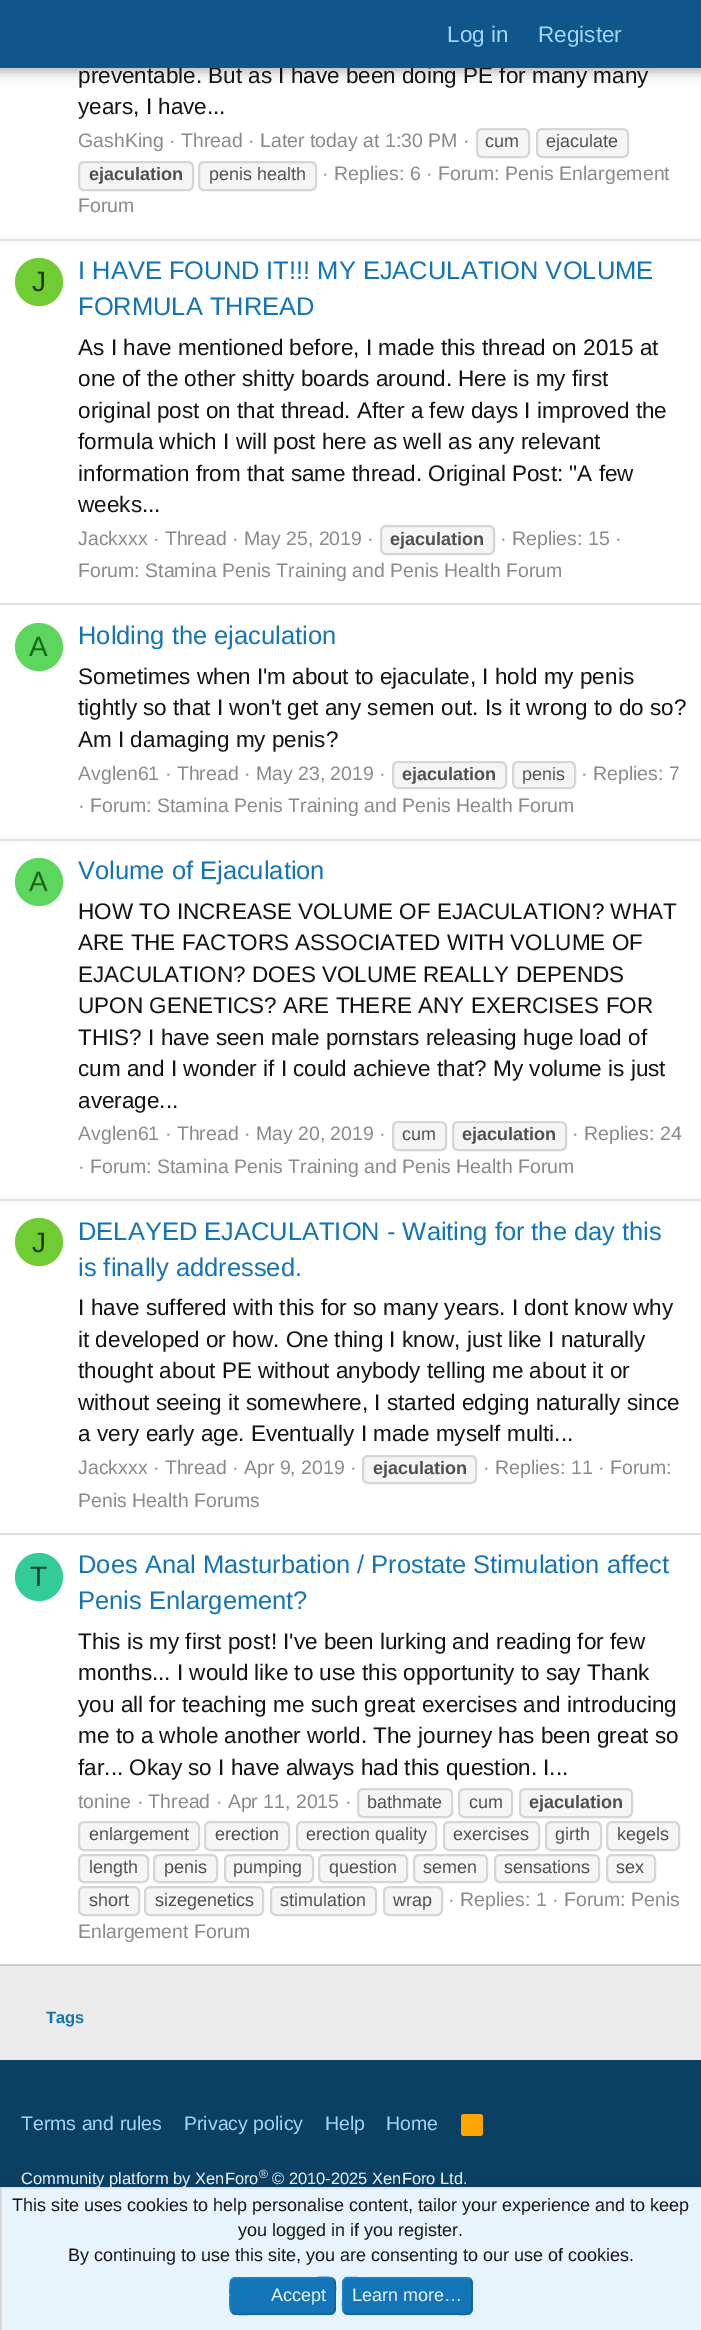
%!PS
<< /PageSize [701 2330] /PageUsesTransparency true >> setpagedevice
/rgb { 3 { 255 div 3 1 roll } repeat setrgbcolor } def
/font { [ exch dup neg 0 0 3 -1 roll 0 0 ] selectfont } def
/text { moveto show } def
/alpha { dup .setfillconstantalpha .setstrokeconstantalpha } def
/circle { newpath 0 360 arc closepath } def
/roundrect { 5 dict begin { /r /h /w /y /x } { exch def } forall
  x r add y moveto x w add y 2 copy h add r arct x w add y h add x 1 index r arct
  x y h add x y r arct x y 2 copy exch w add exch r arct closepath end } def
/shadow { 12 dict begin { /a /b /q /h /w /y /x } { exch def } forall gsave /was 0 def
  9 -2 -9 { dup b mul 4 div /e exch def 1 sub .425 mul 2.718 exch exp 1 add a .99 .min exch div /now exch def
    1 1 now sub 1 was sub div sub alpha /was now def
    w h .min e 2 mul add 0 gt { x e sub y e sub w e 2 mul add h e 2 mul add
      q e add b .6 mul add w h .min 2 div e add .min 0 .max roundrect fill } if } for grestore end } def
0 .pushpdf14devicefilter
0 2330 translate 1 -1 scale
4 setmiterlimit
235 235 235 rgb
0 0 701 2330 rectfill
255 255 255 rgb
0 68 701 1896 rectfill
0 0 0 rgb
-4 -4 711 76 0 6 0.3 shadow
204 204 204 rgb
0 1964 701 2 rectfill
245 245 245 rgb
477 129 52 28 5 roundrect gsave fill grestore
214 214 214 rgb
2 setlinewidth
stroke
245 245 245 rgb
537 129 91 28 5 roundrect gsave fill grestore
214 214 214 rgb
stroke
245 245 245 rgb
79 162 114 28 5 roundrect gsave fill grestore
214 214 214 rgb
stroke
245 245 245 rgb
199 162 117 28 5 roundrect gsave fill grestore
214 214 214 rgb
stroke
224 224 224 rgb
0 239 701 2 rectfill
112 204 51 rgb
39 282 24 circle fill
245 245 245 rgb
381 526 113 28 5 roundrect gsave fill grestore
214 214 214 rgb
stroke
224 224 224 rgb
0 603 701 2 rectfill
92 214 92 rgb
39 647 24 circle fill
245 245 245 rgb
393 762 113 26 5 roundrect gsave fill grestore
214 214 214 rgb
stroke
245 245 245 rgb
513 762 62 26 5 roundrect gsave fill grestore
214 214 214 rgb
stroke
224 224 224 rgb
0 839 701 2 rectfill
92 214 92 rgb
39 882 24 circle fill
245 245 245 rgb
393 1122 53 28 5 roundrect gsave fill grestore
214 214 214 rgb
stroke
245 245 245 rgb
453 1122 113 28 5 roundrect gsave fill grestore
214 214 214 rgb
stroke
224 224 224 rgb
0 1199 701 2 rectfill
112 204 51 rgb
39 1242 24 circle fill
245 245 245 rgb
363 1456 113 27 5 roundrect gsave fill grestore
214 214 214 rgb
stroke
224 224 224 rgb
0 1533 701 2 rectfill
51 204 153 rgb
39 1577 24 circle fill
245 245 245 rgb
358 1789 94 28 5 roundrect gsave fill grestore
214 214 214 rgb
stroke
245 245 245 rgb
459 1789 53 28 5 roundrect gsave fill grestore
214 214 214 rgb
stroke
245 245 245 rgb
520 1789 112 28 5 roundrect gsave fill grestore
214 214 214 rgb
stroke
245 245 245 rgb
79 1822 120 28 5 roundrect gsave fill grestore
214 214 214 rgb
stroke
245 245 245 rgb
205 1822 84 28 5 roundrect gsave fill grestore
214 214 214 rgb
stroke
245 245 245 rgb
297 1822 139 28 5 roundrect gsave fill grestore
214 214 214 rgb
stroke
245 245 245 rgb
444 1822 95 28 5 roundrect gsave fill grestore
214 214 214 rgb
stroke
245 245 245 rgb
546 1822 55 28 5 roundrect gsave fill grestore
214 214 214 rgb
stroke
245 245 245 rgb
607 1822 72 28 5 roundrect gsave fill grestore
214 214 214 rgb
stroke
245 245 245 rgb
79 1855 69 27 5 roundrect gsave fill grestore
214 214 214 rgb
stroke
245 245 245 rgb
154 1855 63 27 5 roundrect gsave fill grestore
214 214 214 rgb
stroke
245 245 245 rgb
225 1855 88 27 5 roundrect gsave fill grestore
214 214 214 rgb
stroke
245 245 245 rgb
319 1855 88 27 5 roundrect gsave fill grestore
214 214 214 rgb
stroke
245 245 245 rgb
414 1855 73 27 5 roundrect gsave fill grestore
214 214 214 rgb
stroke
245 245 245 rgb
495 1855 104 27 5 roundrect gsave fill grestore
214 214 214 rgb
stroke
245 245 245 rgb
607 1855 48 27 5 roundrect gsave fill grestore
214 214 214 rgb
stroke
245 245 245 rgb
79 1887 60 28 5 roundrect gsave fill grestore
214 214 214 rgb
stroke
245 245 245 rgb
145 1887 118 28 5 roundrect gsave fill grestore
214 214 214 rgb
stroke
245 245 245 rgb
271 1887 105 28 5 roundrect gsave fill grestore
214 214 214 rgb
stroke
245 245 245 rgb
384 1887 58 28 5 roundrect gsave fill grestore
214 214 214 rgb
stroke
11 64 101 rgb
0 2060 701 127 rectfill
0 0 0 rgb
0 2193 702 131 0 11 0.15 shadow
255 165 0 rgb
461 2114 22 22 3 roundrect fill
232 244 252 rgb
2 2189 699 141 rectfill
20 116 184 rgb
230 2277 106 38 6 roundrect fill
18 101 161 rgb
1.5 setlinewidth
333.5 2279.5 moveto 3 2.5 1.5 12.5 1.5 16.5 rcurveto 0 21 2 18 -21 18 rcurveto -63 0 rlineto -1.5 0 -15.5 2 -19 -2 rcurveto stroke
23 130 207 rgb
232 2312 moveto -3 -2.5 -2 -12.5 -2 -16 rcurveto 0 -21.5 -1.5 -18 21 -18 rcurveto 63 0 rlineto 2 0 16 -2.5 19.5 1.5 rcurveto stroke
20 116 184 rgb
342 2277 131 38 6 roundrect fill
18 101 161 rgb
470 2279.5 moveto 3 2.5 2 12.5 2 16.5 rcurveto 0 22.5 1 18 -25 18 rcurveto -99 0 rlineto -1.5 -0.5 -2.5 -1 -3.5 -2 rcurveto stroke
23 130 207 rgb
344.5 2312 moveto -3 -2.5 -1.5 -12.5 -1.5 -16 rcurveto 0 -23 -1.5 -18 25 -18 rcurveto 98.5 0 rlineto 1.5 0 2.5 0.5 3.5 1.5 rcurveto stroke
/LiberationSans-Regular 22.5 font
20 20 20 rgb
(preventable. But as I have been doing PE for many many) 78 83 text
15 87 138 rgb
0 0 701 68 rectfill
163 212 245 rgb
(Register) 538 42 text
(Log in) 447 42 text
20 20 20 rgb
(years, I have...) 78 114 text
/LiberationSans-Regular 19.5 font
138 138 138 rgb
(GashKing · Thread · Later today at 1:30 PM ·) 78 147 text
/LiberationSans-Regular 18 font
79 79 79 rgb
(cum) 485 147 text
(ejaculate) 546 147 text
/LiberationSans-Bold 18 font
(ejaculation) 89 180 text
/LiberationSans-Regular 18 font
(penis health) 209 180 text
/LiberationSans-Regular 19.5 font
138 138 138 rgb
(· Replies: 6 · Forum: Penis Enlargement) 322 180 text
(Forum) 78 212 text
/LiberationSans-Regular 28 font
34 61 15 rgb
(J) 32 291 text
/LiberationSans-Regular 25.5 font
20 116 184 rgb
(I HAVE FOUND IT!!! MY EJACULATION VOLUME) 78 279 text
(FORMULA THREAD) 78 315 text
/LiberationSans-Regular 22.5 font
20 20 20 rgb
(As I have mentioned before, I made this thread on 2015 at) 78 355 text
(one of the other shitty boards around. Here is my first) 78 386 text
(original post on that thread. After a few days I improved the) 78 418 text
(formula which I will post here as well as any relevant) 78 449 text
(information from that same thread. Original Post: "A few) 78 481 text
(weeks...) 78 512 text
/LiberationSans-Regular 19.5 font
138 138 138 rgb
(Jackxxx · Thread · May 25, 2019 ·) 78 545 text
/LiberationSans-Bold 18 font
79 79 79 rgb
(ejaculation) 390 545 text
/LiberationSans-Regular 19.5 font
138 138 138 rgb
(· Replies: 15 ·) 500 545 text
(Forum: Stamina Penis Training and Penis Health Forum) 78 577 text
/LiberationSans-Regular 28 font
26 102 26 rgb
(A) 29 656 text
/LiberationSans-Regular 25.5 font
20 116 184 rgb
(Holding the ejaculation) 78 644 text
/LiberationSans-Regular 22.5 font
20 20 20 rgb
(Sometimes when I'm about to ejaculate, I hold my penis) 78 684 text
(tightly so that I won't get any semen out. Is it wrong to do so?) 78 715 text
(Am I damaging my penis?) 78 747 text
/LiberationSans-Regular 19.5 font
138 138 138 rgb
(Avglen61 · Thread · May 23, 2019 ·) 78 780 text
/LiberationSans-Bold 18 font
79 79 79 rgb
(ejaculation) 402 780 text
/LiberationSans-Regular 18 font
(penis) 522 780 text
/LiberationSans-Regular 19.5 font
138 138 138 rgb
(· Replies: 7) 581 780 text
(· Forum: Stamina Penis Training and Penis Health Forum) 78 812 text
/LiberationSans-Regular 28 font
26 102 26 rgb
(A) 29 891 text
/LiberationSans-Regular 25.5 font
20 116 184 rgb
(Volume of Ejaculation) 78 879 text
/LiberationSans-Regular 22.5 font
20 20 20 rgb
(HOW TO INCREASE VOLUME OF EJACULATION? WHAT) 78 919 text
(ARE THE FACTORS ASSOCIATED WITH VOLUME OF) 78 950 text
(EJACULATION? DOES VOLUME REALLY DEPENDS) 78 982 text
(UPON GENETICS? ARE THERE ANY EXERCISES FOR) 78 1013 text
(THIS? I have seen male pornstars releasing huge load of) 78 1045 text
(cum and I wonder if I could achieve that? My volume is just) 78 1076 text
(average...) 78 1108 text
/LiberationSans-Regular 19.5 font
138 138 138 rgb
(Avglen61 · Thread · May 20, 2019 ·) 78 1140 text
/LiberationSans-Regular 18 font
79 79 79 rgb
(cum) 402 1140 text
/LiberationSans-Bold 18 font
(ejaculation) 462 1140 text
/LiberationSans-Regular 19.5 font
138 138 138 rgb
(· Replies: 24) 572 1140 text
(· Forum: Stamina Penis Training and Penis Health Forum) 78 1173 text
/LiberationSans-Regular 28 font
34 61 15 rgb
(J) 32 1252 text
/LiberationSans-Regular 25.5 font
20 116 184 rgb
(DELAYED EJACULATION - Waiting for the day this) 78 1240 text
(is finally addressed.) 78 1276 text
/LiberationSans-Regular 22.5 font
20 20 20 rgb
(I have suffered with this for so many years. I dont know why) 78 1315 text
(it developed or how. One thing I know, just like I naturally) 78 1347 text
(thought about PE without anybody telling me about it or) 78 1378 text
(without seeing it somewhere, I started edging naturally since) 78 1410 text
(a very early age. Eventually I made myself multi...) 78 1441 text
/LiberationSans-Regular 19.5 font
138 138 138 rgb
(Jackxxx · Thread · Apr 9, 2019 ·) 78 1474 text
/LiberationSans-Bold 18 font
79 79 79 rgb
(ejaculation) 373 1474 text
/LiberationSans-Regular 19.5 font
138 138 138 rgb
(· Replies: 11 · Forum:) 483 1474 text
(Penis Health Forums) 78 1507 text
/LiberationSans-Regular 28 font
15 61 46 rgb
(T) 30 1586 text
/LiberationSans-Regular 25.5 font
20 116 184 rgb
(Does Anal Masturbation / Prostate Stimulation affect) 78 1573 text
(Penis Enlargement?) 78 1609 text
/LiberationSans-Regular 22.5 font
20 20 20 rgb
(This is my first post! I've been lurking and reading for few) 78 1649 text
(months... I would like to use this opportunity to say Thank) 78 1680 text
(you all for teaching me such great exercises and introducing) 78 1712 text
(me to a whole another world. The journey has been great so) 78 1743 text
(far... Okay so I have always had this question. I...) 78 1775 text
/LiberationSans-Regular 19.5 font
138 138 138 rgb
(tonine · Thread · Apr 11, 2015 ·) 78 1808 text
/LiberationSans-Regular 18 font
79 79 79 rgb
(bathmate) 367 1808 text
(cum) 469 1808 text
/LiberationSans-Bold 18 font
(ejaculation) 529 1808 text
/LiberationSans-Regular 18 font
(enlargement) 89 1840 text
(erection) 215 1840 text
(erection quality) 306 1840 text
(exercises) 453 1840 text
(girth) 555 1840 text
(kegels) 617 1840 text
(length) 89 1873 text
(penis) 164 1873 text
(pumping) 233 1873 text
(question) 329 1873 text
(semen) 423 1873 text
(sensations) 504 1873 text
(sex) 616 1873 text
(short) 89 1906 text
(sizegenetics) 155 1906 text
(stimulation) 280 1906 text
(wrap) 393 1906 text
/LiberationSans-Regular 19.5 font
138 138 138 rgb
(· Replies: 1 · Forum: Penis) 448 1906 text
(Enlargement Forum) 78 1938 text
/LiberationSans-Bold 16.5 font
20 116 184 rgb
(Tags) 46 2023 text
/LiberationSans-Regular 19.5 font
163 212 245 rgb
(Terms and rules) 21 2130 text
(Privacy policy) 184 2130 text
(Help) 325 2130 text
(Home) 386 2130 text
/LiberationSans-Regular 16.5 font
232 244 252 rgb
(Community platform by XenForo) 21 2184 text
/LiberationSans-Regular 12 font
(®) 259 2178 text
/LiberationSans-Regular 16.5 font
(© 2010-2025 XenForo Ltd.) 272 2184 text
224 224 224 rgb
0 2187 701 2 rectfill
214 214 214 rgb
0 2187 2 143 rectfill
/LiberationSans-Regular 18 font
20 20 20 rgb
(This site uses cookies to help personalise content, tailor your experience and to keep) 12 2211 text
(you logged in if you register.) 238 2236 text
(By continuing to use this site, you are consenting to our use of cookies.) 68 2261 text
232 244 252 rgb
(Accept) 271 2301 text
(Learn more…) 352 2301 text
.poppdf14devicefilter showpage
